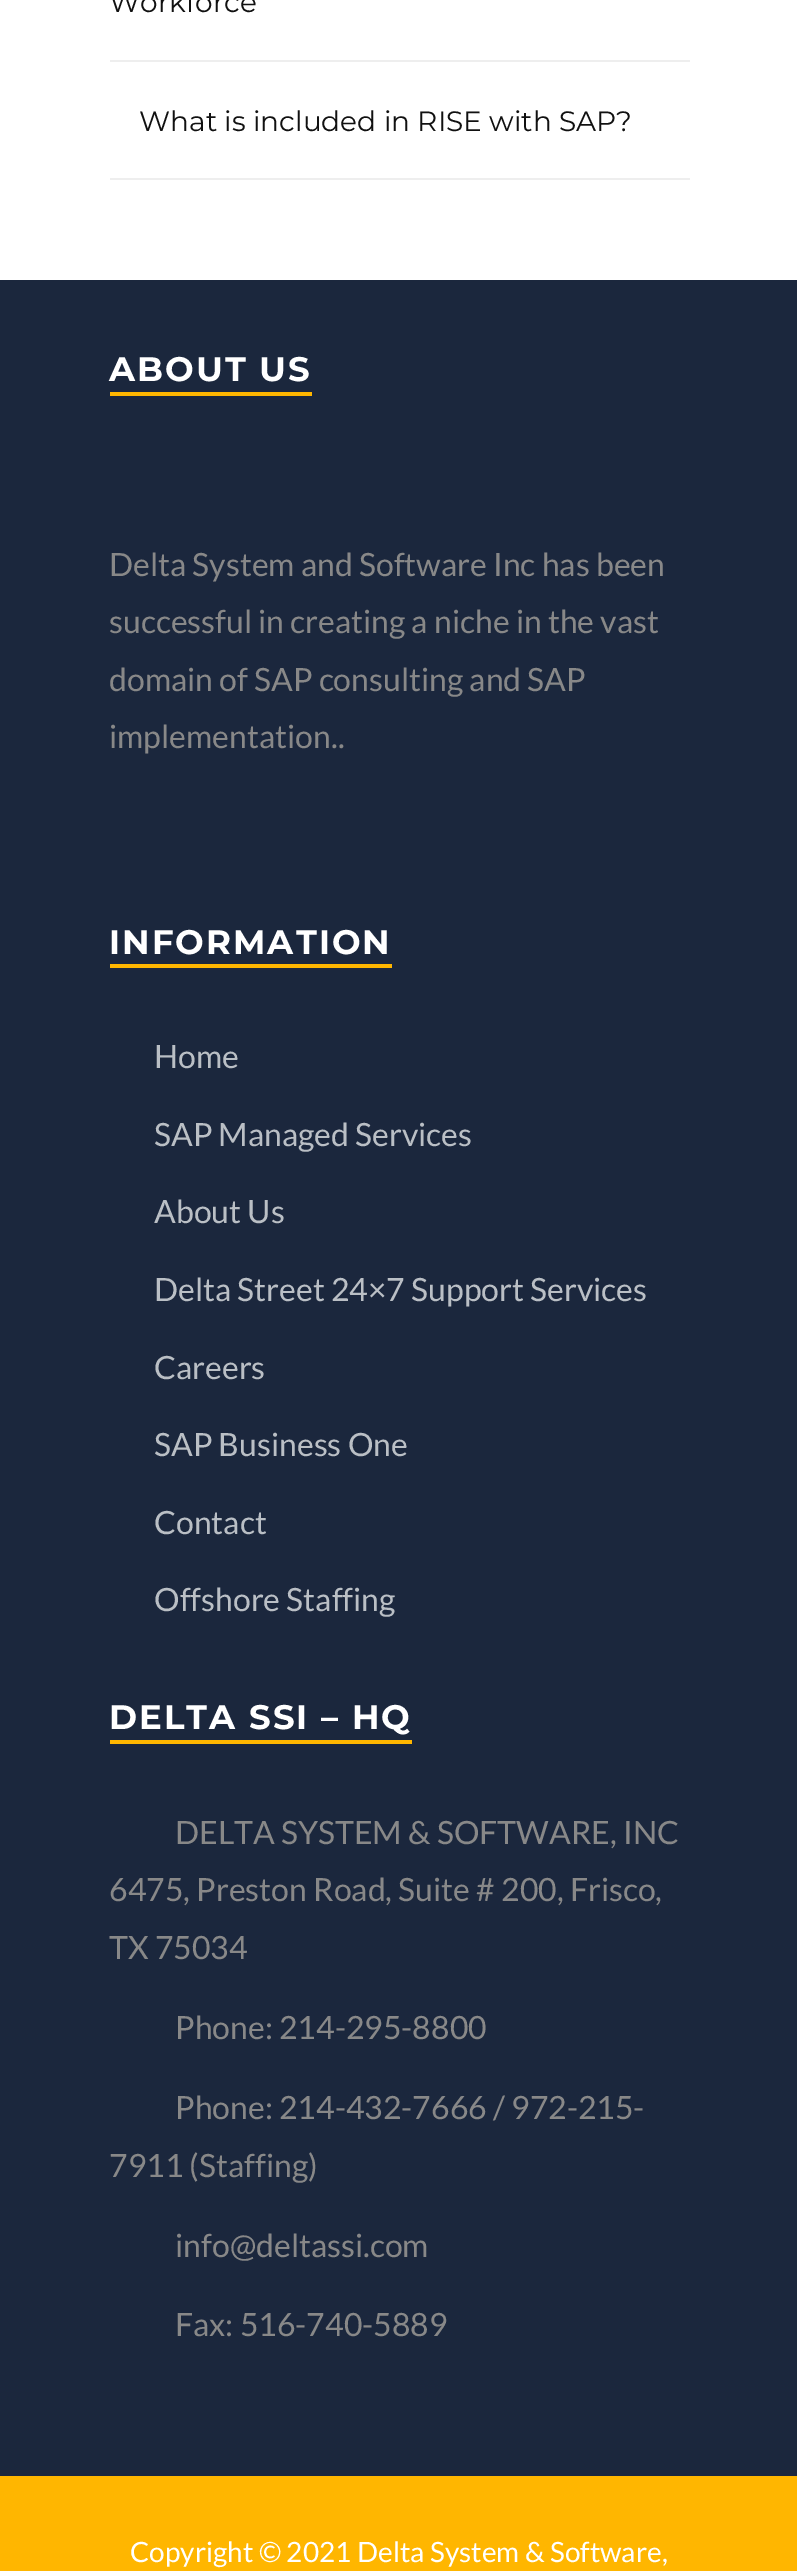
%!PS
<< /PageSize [797 2571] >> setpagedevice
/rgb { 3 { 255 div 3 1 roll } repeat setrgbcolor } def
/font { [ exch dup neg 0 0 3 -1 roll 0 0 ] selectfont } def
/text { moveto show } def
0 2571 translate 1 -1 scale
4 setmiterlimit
255 255 255 rgb
0 0 797 2571 rectfill
238 238 238 rgb
110 60 580 2 rectfill
110 178 580 2 rectfill
27 39 61 rgb
0 280 797 2196 rectfill
255 182 0 rgb
110 392 202 4 rectfill
110 964 282 4 rectfill
110 1740 302 4 rectfill
0 2476 797 95 rectfill
/Montserrat-Regular 28 font
17 17 17 rgb
(Workforce) 109 12 text
(What is included in RISE with SAP?) 139 131 text
/Montserrat-Bold 34 font
255 255 255 rgb
109 381 moveto 2 0 (ABOUT US) ashow
/Lato-Regular 32 font
136 136 136 rgb
(Delta System and Software Inc has been) 109 576 text
(successful in creating a niche in the vast) 109 633 text
(domain of SAP consulting and SAP) 109 691 text
(implementation..) 109 748 text
/Montserrat-Bold 34 font
255 255 255 rgb
109 954 moveto 2 0 (INFORMATION) ashow
/Lato-Regular 32 font
186 191 197 rgb
(Home) 154 1068 text
(SAP Managed Services) 154 1146 text
(About Us) 154 1223 text
(Delta Street 24×7 Support Services) 154 1301 text
(Careers) 154 1379 text
(SAP Business One) 154 1456 text
(Contact) 154 1534 text
(Offshore Staffing) 154 1611 text
/Montserrat-Bold 34 font
255 255 255 rgb
109 1729 moveto 2 0 (DELTA SSI – HQ) ashow
/Lato-Regular 32 font
136 136 136 rgb
(DELTA SYSTEM & SOFTWARE, INC) 175 1844 text
(6475, Preston Road, Suite # 200, Frisco,) 109 1901 text
(TX 75034) 109 1959 text
(Phone: 214-295-8800) 175 2039 text
(Phone: 214-432-7666 / 972-215-) 175 2119 text
(7911 \(Staffing\)) 109 2177 text
(info@deltassi.com) 175 2257 text
(Fax: 516-740-5889) 175 2336 text
/Lato-Regular 28 font
255 255 255 rgb
(Copyright © 2021 Delta System & Software,) 130 2562 text
showpage
